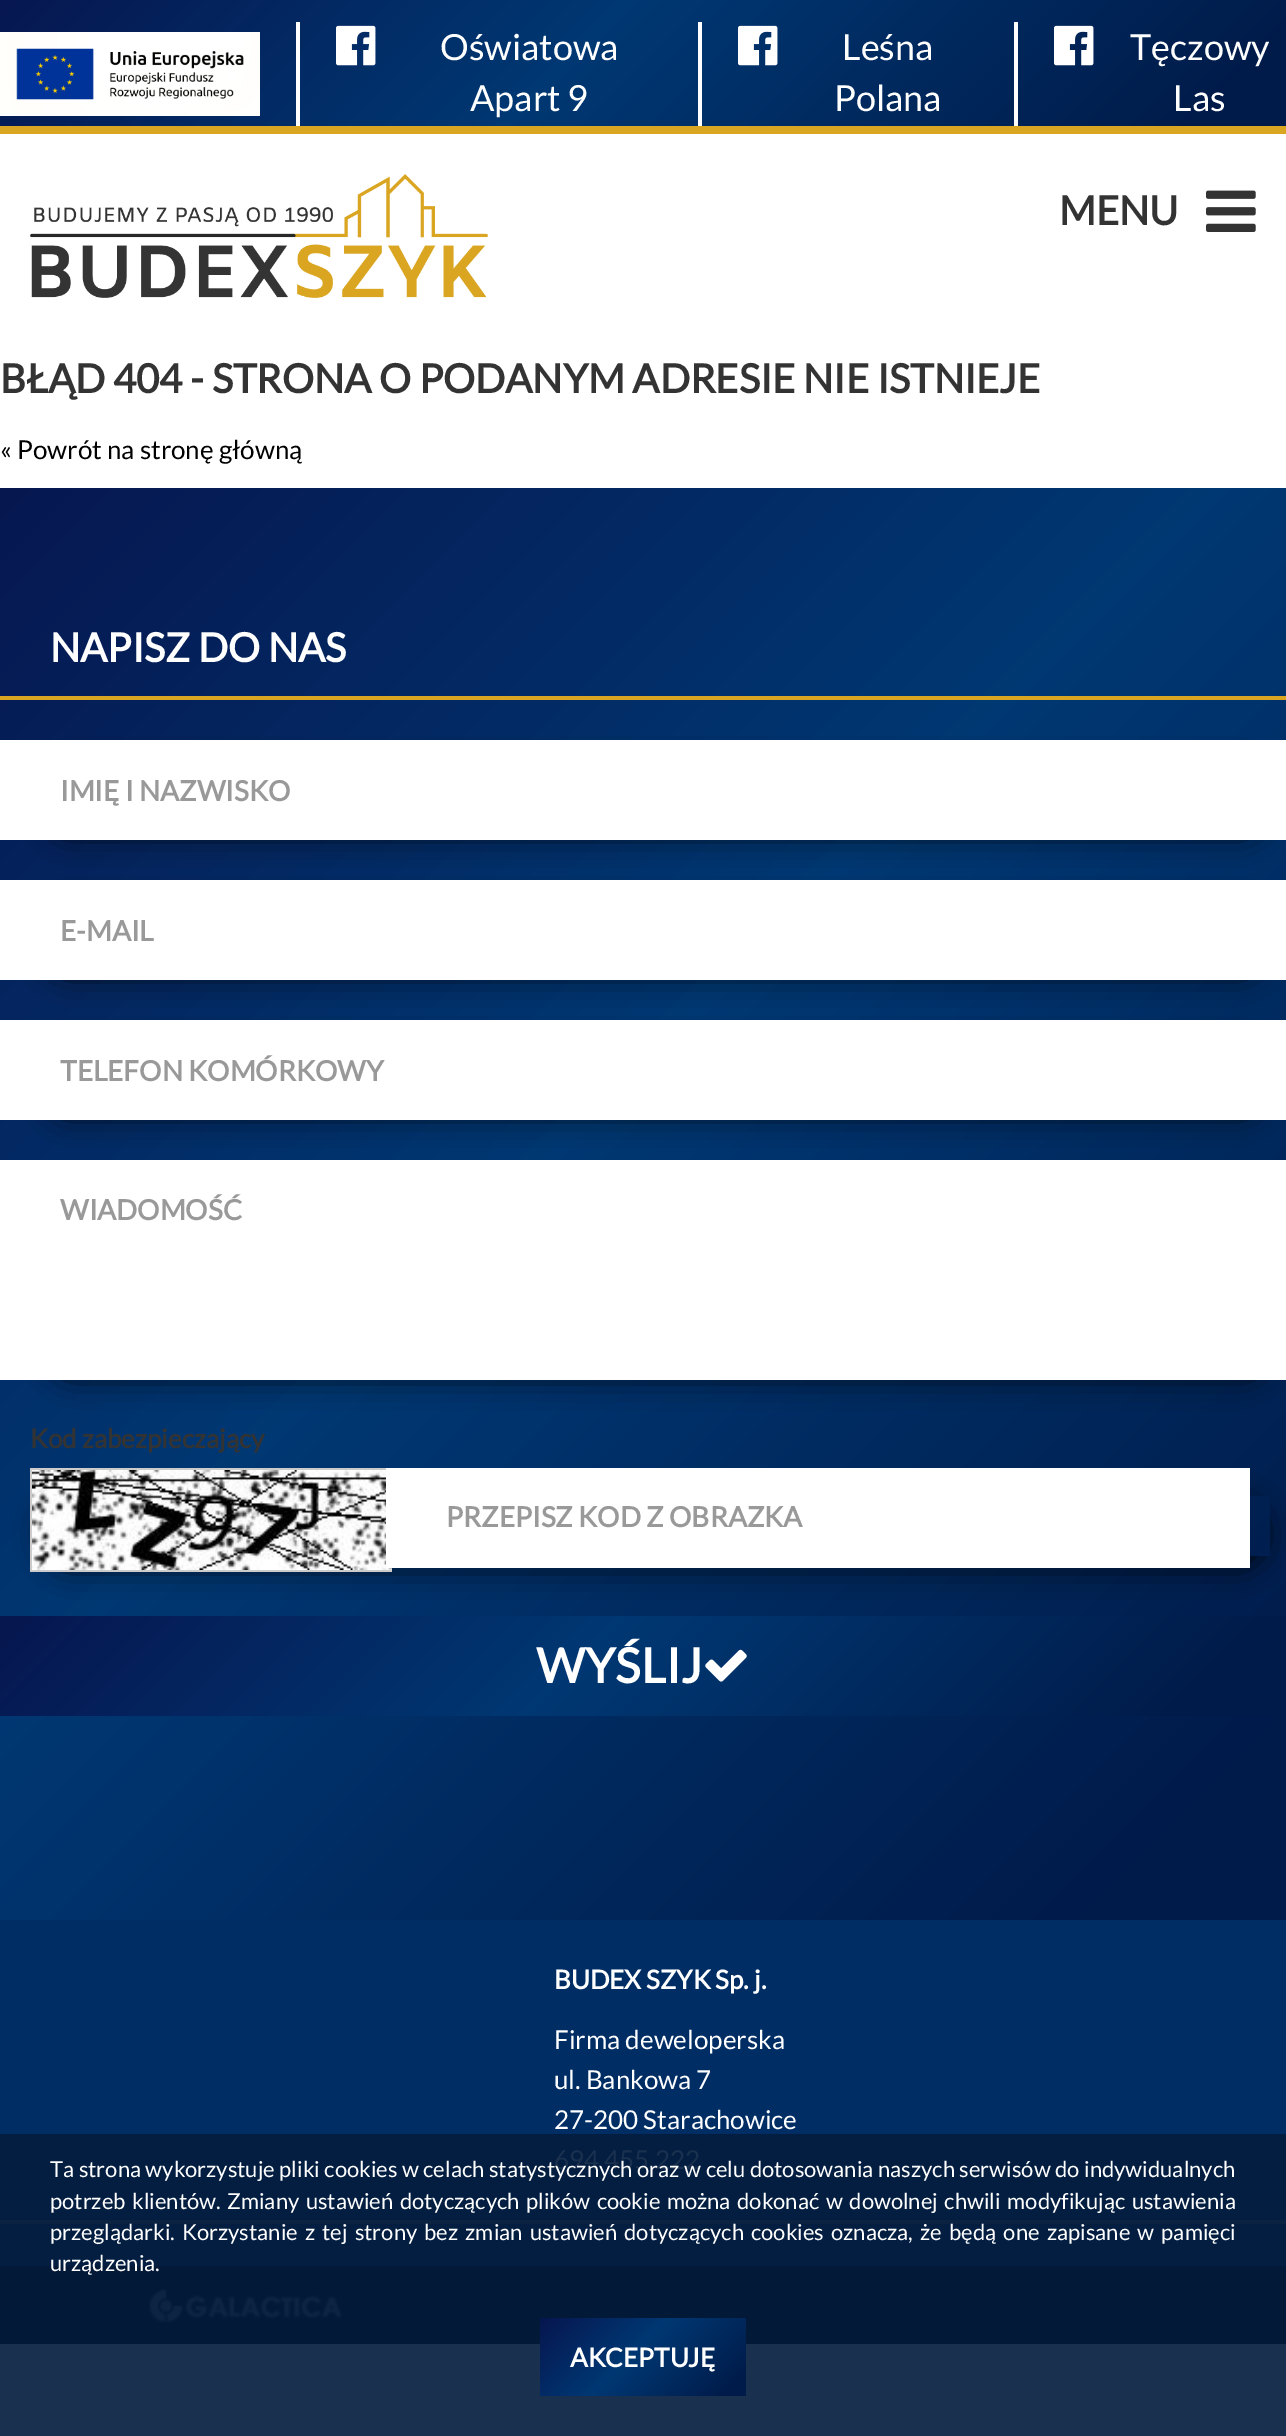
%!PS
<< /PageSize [1286 2436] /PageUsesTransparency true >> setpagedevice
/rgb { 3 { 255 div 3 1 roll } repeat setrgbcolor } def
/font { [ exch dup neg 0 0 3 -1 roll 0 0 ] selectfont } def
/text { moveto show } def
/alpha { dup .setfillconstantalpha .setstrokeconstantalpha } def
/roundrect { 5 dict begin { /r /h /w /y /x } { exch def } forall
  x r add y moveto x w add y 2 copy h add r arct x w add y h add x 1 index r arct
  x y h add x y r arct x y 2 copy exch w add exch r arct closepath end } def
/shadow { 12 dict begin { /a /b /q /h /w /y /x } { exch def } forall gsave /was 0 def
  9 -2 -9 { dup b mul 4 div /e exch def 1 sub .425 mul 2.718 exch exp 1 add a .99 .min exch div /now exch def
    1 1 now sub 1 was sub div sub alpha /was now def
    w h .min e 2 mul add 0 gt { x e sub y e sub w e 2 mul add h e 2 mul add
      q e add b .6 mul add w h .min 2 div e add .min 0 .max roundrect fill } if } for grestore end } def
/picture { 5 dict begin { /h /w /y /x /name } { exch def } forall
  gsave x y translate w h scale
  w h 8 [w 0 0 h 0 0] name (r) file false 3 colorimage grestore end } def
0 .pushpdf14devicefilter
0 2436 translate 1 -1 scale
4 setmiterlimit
255 255 255 rgb
0 0 1286 2436 rectfill
26 48 79 rgb
0 2344 1286 92 rectfill
gsave 0 0 moveto 1286 0 rlineto 0 126 rlineto -1286 0 rlineto closepath clip newpath
<< /ShadingType 2 /ColorSpace /DeviceRGB /Coords [275 -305 1011 431] /Extend [true true] /Function << /FunctionType 3 /Domain [0 1] /Functions [<< /FunctionType 2 /Domain [0 1] /C0 [0.027 0.086 0.31] /C1 [0.016 0.145 0.373] /N 1 >> << /FunctionType 2 /Domain [0 1] /C0 [0.016 0.145 0.373] /C1 [0 0.22 0.451] /N 1 >> << /FunctionType 2 /Domain [0 1] /C0 [0 0.22 0.451] /C1 [0 0.106 0.29] /N 1 >> << /FunctionType 2 /Domain [0 1] /C0 [0 0.106 0.29] /C1 [0 0.106 0.29] /N 1 >>] /Bounds [0.2 0.45 0.92] /Encode [0 1 0 1 0 1 0 1] >> >> shfill grestore
218 165 33 rgb
0 126 1286 8 rectfill
(img_01.rgb) 0 32 260 84 picture
255 255 255 rgb
296 22 4 104 rectfill
(img_02.rgb) 336 25 40 41 picture
698 22 4 104 rectfill
(img_03.rgb) 738 25 40 41 picture
1014 22 4 104 rectfill
(img_04.rgb) 1054 25 40 41 picture
(img_05.rgb) 30 174 458 124 picture
(img_06.rgb) 1206 190 50 42 picture
gsave 0 488 moveto 1286 0 rlineto 0 1432 rlineto -1286 0 rlineto closepath clip newpath
<< /ShadingType 2 /ColorSpace /DeviceRGB /Coords [-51 510 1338 1899] /Extend [true true] /Function << /FunctionType 3 /Domain [0 1] /Functions [<< /FunctionType 2 /Domain [0 1] /C0 [0.027 0.086 0.31] /C1 [0.016 0.145 0.373] /N 1 >> << /FunctionType 2 /Domain [0 1] /C0 [0.016 0.145 0.373] /C1 [0 0.22 0.451] /N 1 >> << /FunctionType 2 /Domain [0 1] /C0 [0 0.22 0.451] /C1 [0 0.106 0.29] /N 1 >> << /FunctionType 2 /Domain [0 1] /C0 [0 0.106 0.29] /C1 [0 0.106 0.29] /N 1 >>] /Bounds [0.2 0.45 0.92] /Encode [0 1 0 1 0 1 0 1] >> >> shfill grestore
218 165 33 rgb
0 696 1286 4 rectfill
0 0 0 rgb
48 772 1214 60 50 16 1 shadow
255 255 255 rgb
0 740 1286 100 rectfill
0 0 0 rgb
48 912 1214 60 50 16 1 shadow
255 255 255 rgb
0 880 1286 100 rectfill
0 0 0 rgb
48 1052 1214 60 50 16 1 shadow
255 255 255 rgb
0 1020 1286 100 rectfill
0 0 0 rgb
52 1314 1214 60 50 16 1 shadow
255 255 255 rgb
0 1160 1286 220 rectfill
gsave
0 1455 moveto 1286 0 rlineto 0 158 rlineto -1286 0 rlineto closepath 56 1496 moveto 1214 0 rlineto 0 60 rlineto -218.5 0 rlineto -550 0 -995.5 -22 -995.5 -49 rcurveto closepath eoclip newpath
0 0 0 rgb
48 1504 1214 60 50 16 1 shadow
grestore
204 204 204 rgb
30 1468 362 2 rectfill
30 1570 362 2 rectfill
30 1468 2 104 rectfill
(img_07.rgb) 32 1470 360 100 picture
255 255 255 rgb
386 1468 864 100 rectfill
gsave 0 1616 moveto 1286 0 rlineto 0 100 rlineto -1286 0 rlineto closepath clip newpath
<< /ShadingType 2 /ColorSpace /DeviceRGB /Coords [296 1320 990 2013] /Extend [true true] /Function << /FunctionType 3 /Domain [0 1] /Functions [<< /FunctionType 2 /Domain [0 1] /C0 [0.027 0.086 0.31] /C1 [0.016 0.145 0.373] /N 1 >> << /FunctionType 2 /Domain [0 1] /C0 [0.016 0.145 0.373] /C1 [0 0.22 0.451] /N 1 >> << /FunctionType 2 /Domain [0 1] /C0 [0 0.22 0.451] /C1 [0 0.106 0.29] /N 1 >> << /FunctionType 2 /Domain [0 1] /C0 [0 0.106 0.29] /C1 [0 0.106 0.29] /N 1 >>] /Bounds [0.2 0.45 0.92] /Encode [0 1 0 1 0 1 0 1] >> >> shfill grestore
(img_08.rgb) 705 1649 42 33 picture
0 45 100 rgb
0 1920 1286 214 rectfill
3 30 65 rgb
0 2134 1286 132 rectfill
12 34 65 rgb
0 2220 1286 4 rectfill
3 25 56 rgb
0 2266 1286 78 rectfill
(img_09.rgb) 149 2289 194 34 picture
gsave 540 2318 moveto 206 0 rlineto 0 78 rlineto -206 0 rlineto closepath clip newpath
<< /ShadingType 2 /ColorSpace /DeviceRGB /Coords [572 2286 714 2428] /Extend [true true] /Function << /FunctionType 3 /Domain [0 1] /Functions [<< /FunctionType 2 /Domain [0 1] /C0 [0.027 0.086 0.31] /C1 [0.016 0.145 0.373] /N 1 >> << /FunctionType 2 /Domain [0 1] /C0 [0.016 0.145 0.373] /C1 [0 0.22 0.451] /N 1 >> << /FunctionType 2 /Domain [0 1] /C0 [0 0.22 0.451] /C1 [0 0.106 0.29] /N 1 >> << /FunctionType 2 /Domain [0 1] /C0 [0 0.106 0.29] /C1 [0 0.106 0.29] /N 1 >>] /Bounds [0.2 0.45 0.92] /Encode [0 1 0 1 0 1 0 1] >> >> shfill grestore
/Lato-Regular 36 font
255 255 255 rgb
(Oświatowa) 440 60 text
(Apart 9) 470 111 text
(Leśna) 842 60 text
(Polana) 834 111 text
(Tęczowy) 1130 60 text
(Las) 1173 111 text
/Lato-Bold 40 font
51 51 51 rgb
(MENU) 1059 225 text
(BŁĄD 404 - STRONA O PODANYM ADRESIE NIE ISTNIEJE) 0 393 text
/Lato-Regular 26 font
0 0 0 rgb
(« Powrót na stronę główną) 0 459 text
/Lato-Bold 40 font
255 255 255 rgb
(NAPISZ DO NAS) 50 662 text
/Lato-Bold 28 font
153 153 153 rgb
(IMIĘ I NAZWISKO) 60 801 text
(E-MAIL) 60 941 text
(TELEFON KOMÓRKOWY) 60 1081 text
(WIADOMOŚĆ) 60 1220 text
/Lato-Bold 26 font
51 51 51 rgb
(Kod zabezpieczający) 30 1448 text
/Lato-Bold 28 font
153 153 153 rgb
(PRZEPISZ KOD Z OBRAZKA) 446 1527 text
/Lato-Bold 48 font
255 255 255 rgb
(WYŚLIJ) 536 1683 text
/Lato-Bold 26 font
(BUDEX SZYK Sp. j.) 554 1989 text
/Lato-Regular 26 font
(Firma deweloperska) 554 2049 text
(ul. Bankowa 7) 554 2089 text
(27-200 Starachowice) 554 2129 text
26 48 79 rgb
(694 455 222) 554 2169 text
/Lato-Regular 22 font
255 255 255 rgb
50 2177 moveto 0.3 0 32 (Ta strona wykorzystuje pliki cookies w celach statystycznych oraz w celu dotosowania naszych serwisów do indywidualnych) widthshow
50 2209 moveto 2.4 0 32 (potrzeb klientów.) widthshow
227 2209 moveto 2.4 0 32 (Zmiany ustawień dotyczących plików cookie można dokonać w dowolnej chwili modyfikując ustawienia) widthshow
(przeglądarki.) 50 2240 text
182 2240 moveto 2.9 0 32 (Korzystanie z tej strony bez zmian ustawień dotyczących cookies oznacza, że będą one zapisane w pamięci) widthshow
(urządzenia.) 50 2271 text
/Lato-Bold 26 font
(AKCEPTUJĘ) 570 2367 text
.poppdf14devicefilter showpage
